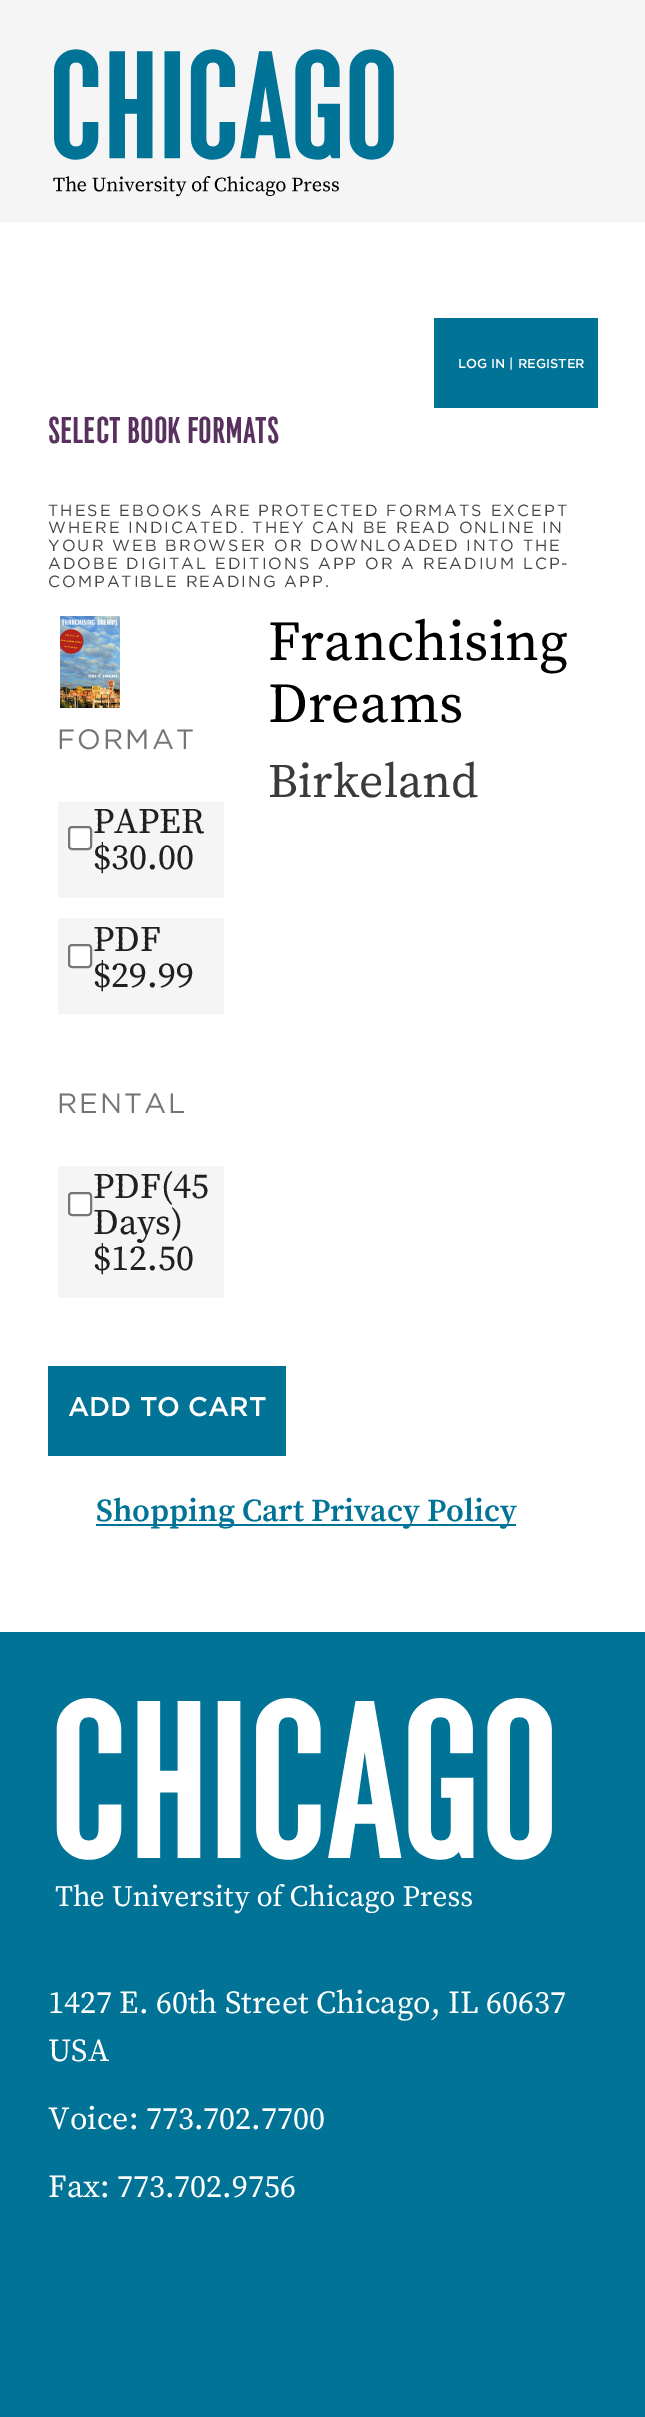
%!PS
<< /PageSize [645 2417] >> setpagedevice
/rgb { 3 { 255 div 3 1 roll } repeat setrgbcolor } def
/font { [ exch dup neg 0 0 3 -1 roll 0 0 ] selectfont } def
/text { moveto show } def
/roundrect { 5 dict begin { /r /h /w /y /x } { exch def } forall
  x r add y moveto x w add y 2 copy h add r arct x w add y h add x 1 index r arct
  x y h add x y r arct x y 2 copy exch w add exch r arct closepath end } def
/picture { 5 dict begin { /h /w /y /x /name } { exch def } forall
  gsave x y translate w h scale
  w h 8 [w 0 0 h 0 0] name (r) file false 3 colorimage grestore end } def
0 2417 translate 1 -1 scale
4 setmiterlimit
255 255 255 rgb
0 0 645 2417 rectfill
245 245 245 rgb
0 0 645 222 rectfill
(img_01.rgb) 53 49 341 148 picture
0 115 150 rgb
434 318 164 90 rectfill
(img_02.rgb) 60 616 60 92 picture
245 245 245 rgb
58 802 166 96 rectfill
255 255 255 rgb
69 827 22 22 3 roundrect gsave fill grestore
118 118 118 rgb
2 setlinewidth
stroke
245 245 245 rgb
58 918 166 96 rectfill
255 255 255 rgb
69 945 22 22 3 roundrect gsave fill grestore
118 118 118 rgb
stroke
245 245 245 rgb
58 1166 166 132 rectfill
255 255 255 rgb
69 1193 22 22 3 roundrect gsave fill grestore
118 118 118 rgb
stroke
0 115 150 rgb
48 1366 238 90 rectfill
96 1524 420 2 rectfill
0 1632 645 785 rectfill
(img_03.rgb) 55 1698 497 216 picture
/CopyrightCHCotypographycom-Light 13 font
255 255 255 rgb
(LOG IN | REGISTER) 458 368 text
/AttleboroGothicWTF-Regular 29 font
89 49 95 rgb
(SELECT BOOK FORMATS) 48 443 text
/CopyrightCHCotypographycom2-Light 16.15 font
69 69 69 rgb
48 516 moveto 2 0 (THESE EBOOKS ARE PROTECTED FORMATS EXCEPT) ashow
48 533 moveto 2 0 (WHERE INDICATED. THEY CAN BE READ ONLINE IN) ashow
48 551 moveto 2 0 (YOUR WEB BROWSER OR DOWNLOADED INTO THE) ashow
48 569 moveto 2 0 (ADOBE DIGITAL EDITIONS APP OR A READIUM LCP-) ashow
48 587 moveto 2 0 (COMPATIBLE READING APP.) ashow
/SourceSerifPro-Regular 56 font
0 0 0 rgb
(Franchising) 268 660 text
(Dreams) 268 722 text
/SourceSerifPro-Regular 48 font
58 58 58 rgb
(Birkeland) 268 797 text
/CopyrightCHCotypographycom2-Light 28 font
117 117 117 rgb
57 749 moveto 2 0 (FORMAT) ashow
/SourceSerifPro-Regular 36 font
32 32 32 rgb
(PAPER) 93 833 text
($30.00) 93 869 text
(PDF) 93 951 text
($29.99) 93 987 text
/CopyrightCHCotypographycom2-Light 28 font
117 117 117 rgb
57 1113 moveto 2 0 (RENTAL) ashow
/SourceSerifPro-Regular 36 font
32 32 32 rgb
(PDF\(45) 93 1198 text
(Days\)) 93 1234 text
($12.50) 93 1270 text
/CopyrightCHCotypographycom-Light 27 font
255 255 255 rgb
(ADD TO CART) 68 1416 text
/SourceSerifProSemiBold-SemiBold 32 font
0 115 150 rgb
(Shopping Cart Privacy Policy) 96 1521 text
/SourceSerifPro-Regular 32 font
255 255 255 rgb
(1427 E. 60th Street Chicago, IL 60637) 48 2013 text
(USA) 48 2061 text
(Voice: 773.702.7700) 48 2129 text
(Fax: 773.702.9756) 48 2197 text
showpage
